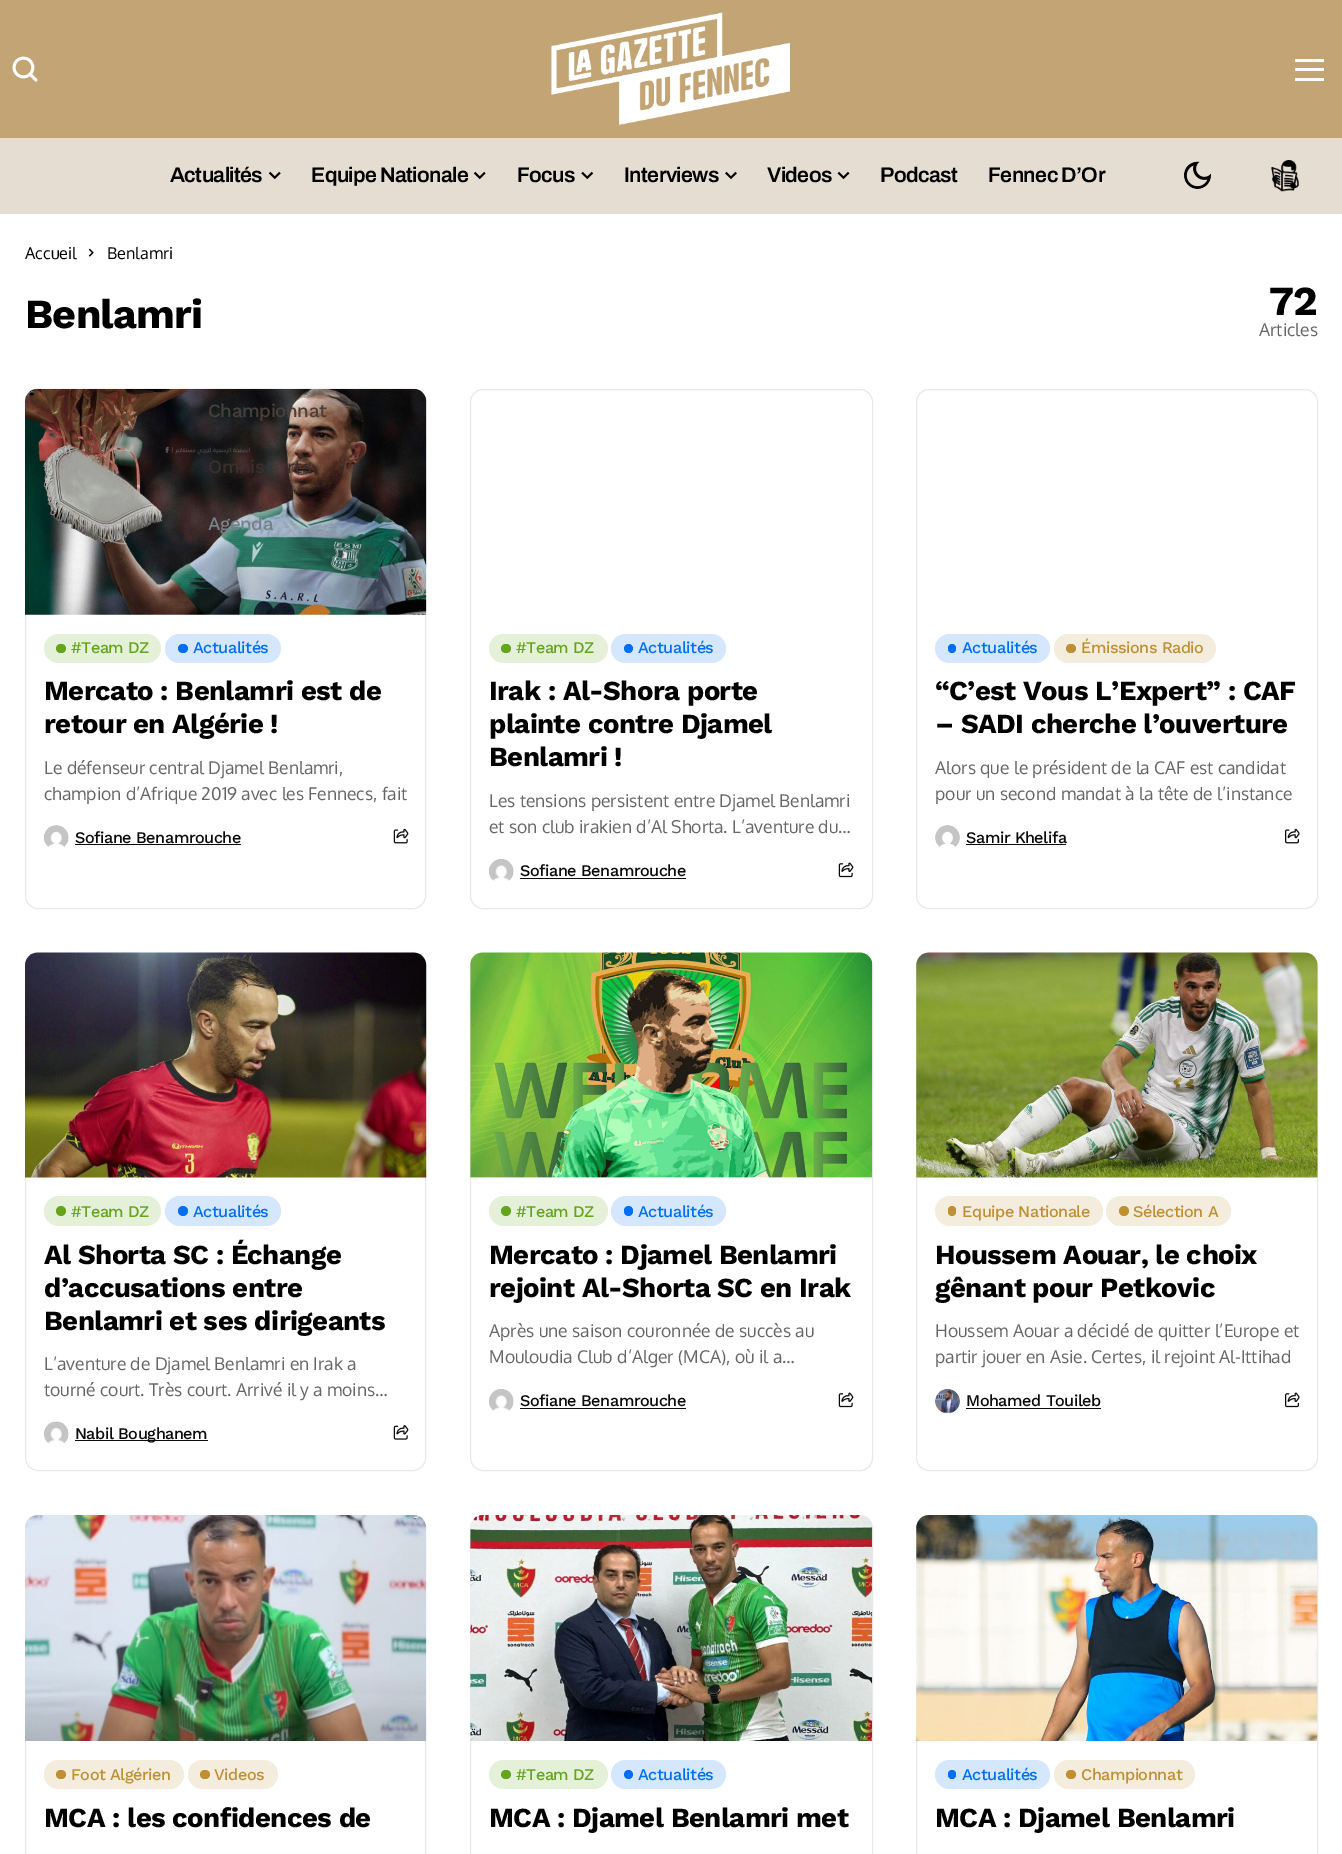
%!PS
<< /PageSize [1342 1854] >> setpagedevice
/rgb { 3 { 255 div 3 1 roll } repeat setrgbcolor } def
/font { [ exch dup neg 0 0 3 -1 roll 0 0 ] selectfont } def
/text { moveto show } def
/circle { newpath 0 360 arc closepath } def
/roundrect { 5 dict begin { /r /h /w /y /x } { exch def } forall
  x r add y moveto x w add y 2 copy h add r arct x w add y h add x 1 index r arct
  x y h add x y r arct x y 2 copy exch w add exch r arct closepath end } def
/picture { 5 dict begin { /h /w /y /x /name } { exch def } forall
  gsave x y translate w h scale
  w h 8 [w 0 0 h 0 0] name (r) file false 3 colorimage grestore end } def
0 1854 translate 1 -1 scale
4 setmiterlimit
255 255 255 rgb
0 0 1342 1854 rectfill
195 164 116 rgb
0 0 1342 138 rectfill
(img_01.rgb) 12 56 26 26 picture
(img_02.rgb) 551 12 239 113 picture
255 255 255 rgb
1295 59 29 3 rectfill
1295 68 29 3 rectfill
1295 78 29 3 rectfill
229 221 209 rgb
0 138 1342 76 rectfill
(img_03.rgb) 268 171 13 9 picture
(img_03.rgb) 473 171 13 9 picture
(img_04.rgb) 581 171 13 9 picture
(img_05.rgb) 725 171 12 9 picture
(img_06.rgb) 837 171 13 9 picture
(img_07.rgb) 1184 161 27 28 picture
(img_08.rgb) 1271 160 28 32 picture
(img_09.rgb) 88 248 6 9 picture
(img_11.rgb) 44 825 25 22 picture
233 233 233 rgb
25.5 389.5 400 519 12.5 roundrect stroke
(img_10.rgb) 25 388 402 227 picture
229 240 217 rgb
44 634 117 29 14.5 roundrect fill
100 165 29 rgb
56 644 10 9 4.5 roundrect fill
212 231 253 rgb
165 634 116 29 14.5 roundrect fill
0 111 246 rgb
178 644 10 9 4.5 roundrect fill
10 10 10 rgb
75 844 166 1 rectfill
(img_12.rgb) 393 828 16 16 picture
(img_13.rgb) 489 859 25 22 picture
233 233 233 rgb
470.5 389.5 402 519 12.5 roundrect stroke
229 240 217 rgb
489 634 119 29 14.5 roundrect fill
100 165 29 rgb
501 644 10 9 4.5 roundrect fill
212 231 253 rgb
611 634 115 29 14.5 roundrect fill
0 111 246 rgb
628.5 648.5 4.5 circle fill
10 10 10 rgb
520 878 166 1 rectfill
(img_14.rgb) 838 862 16 16 picture
(img_15.rgb) 935 825 25 22 picture
233 233 233 rgb
916.5 389.5 401 519 12.5 roundrect stroke
212 231 253 rgb
935 634 115 29 14.5 roundrect fill
0 111 246 rgb
948 644 8 9 4 roundrect fill
244 236 220 rgb
1054 634 162 29 14.5 roundrect fill
191 143 52 rgb
1066 644 10 9 4.5 roundrect fill
10 10 10 rgb
966 844 100 1 rectfill
(img_16.rgb) 1285 828 15 16 picture
(img_18.rgb) 44 1421 25 23 picture
233 233 233 rgb
25.5 953.5 400 517 12.5 roundrect stroke
(img_17.rgb) 25 952 402 226 picture
229 240 217 rgb
44 1196 117 30 15 roundrect fill
100 165 29 rgb
61 1211 5 circle fill
212 231 253 rgb
165 1196 116 30 15 roundrect fill
0 111 246 rgb
183 1211 5 circle fill
10 10 10 rgb
75 1440 133 1 rectfill
(img_19.rgb) 393 1425 16 15 picture
(img_13.rgb) 489 1389 25 22 picture
233 233 233 rgb
470.5 953.5 402 517 12.5 roundrect stroke
(img_20.rgb) 470 952 403 226 picture
229 240 217 rgb
489 1196 119 30 15 roundrect fill
100 165 29 rgb
506 1211 5 circle fill
212 231 253 rgb
611 1196 115 30 15 roundrect fill
0 111 246 rgb
624 1206 9 10 4.5 roundrect fill
10 10 10 rgb
520 1408 166 1 rectfill
(img_14.rgb) 838 1392 16 16 picture
(img_22.rgb) 935 1389 25 25 picture
233 233 233 rgb
916.5 953.5 401 517 12.5 roundrect stroke
(img_21.rgb) 916 952 402 226 picture
244 236 220 rgb
935 1196 168 30 15 roundrect fill
191 143 52 rgb
948 1206 8 10 4 roundrect fill
244 236 220 rgb
1106 1196 125 30 15 roundrect fill
191 143 52 rgb
1124 1211 5 circle fill
10 10 10 rgb
966 1408 135 1 rectfill
(img_23.rgb) 1285 1392 15 16 picture
233 233 233 rgb
25.5 1515.5 400 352 12.5 roundrect stroke
(img_24.rgb) 25 1515 402 226 picture
244 236 220 rgb
44 1760 140 29 14.5 roundrect fill
191 143 52 rgb
56 1770 10 9 4.5 roundrect fill
244 236 220 rgb
188 1760 90 29 14.5 roundrect fill
191 143 52 rgb
200 1770 10 9 4.5 roundrect fill
233 233 233 rgb
470.5 1515.5 402 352 12.5 roundrect stroke
(img_25.rgb) 470 1515 403 226 picture
229 240 217 rgb
489 1760 119 29 14.5 roundrect fill
100 165 29 rgb
501 1770 10 9 4.5 roundrect fill
212 231 253 rgb
611 1760 115 29 14.5 roundrect fill
0 111 246 rgb
628.5 1774.5 4.5 circle fill
233 233 233 rgb
916.5 1515.5 401 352 12.5 roundrect stroke
(img_26.rgb) 916 1515 402 226 picture
212 231 253 rgb
935 1760 115 29 14.5 roundrect fill
0 111 246 rgb
948 1770 8 9 4 roundrect fill
244 236 220 rgb
1054 1760 141 29 14.5 roundrect fill
191 143 52 rgb
1066 1770 10 9 4.5 roundrect fill
/Archivo-SemiBold 21.25 font
0 0 0 rgb
170 182 moveto -0.6 0 (Actualités) ashow
/WorkSans-Medium 18.75 font
72 64 59 rgb
208 417 moveto -0.4 0 (Championnat) ashow
60 47 44 rgb
208 473 moveto -0.4 0 (Omnis) ashow
287 473 moveto -0.4 0 (rts) ashow
118 129 136 rgb
208 530 moveto -0.4 0 (Agenda) ashow
/Archivo-SemiBold 21.25 font
0 0 0 rgb
311 182 moveto -0.6 0 (Equipe Nationale) ashow
517 182 moveto -0.6 0 (Focus) ashow
624 182 moveto -0.6 0 (Interviews) ashow
767 182 moveto -0.6 0 (Videos) ashow
880 182 moveto -0.6 0 (Podcast) ashow
988 182 moveto -0.6 0 (Fennec D’Or) ashow
/Oxygen-Regular 16.25 font
(Accueil) 25 259 text
(Benlamri) 107 259 text
/WorkSans-Bold 41.25 font
25 328 moveto -0.75 0 (Benlamri) ashow
1269 315 moveto -0.75 0 (72) ashow
/Oxygen-Regular 17.5 font
102 102 102 rgb
(Articles) 1259 336 text
/WorkSans-Medium 16.25 font
100 165 29 rgb
71 653 moveto -0.5 0 (#Team DZ) ashow
0 111 246 rgb
193 653 moveto -0.5 0 (Actualités) ashow
/WorkSans-Bold 27.5 font
0 0 0 rgb
44 700 moveto -0.55 0 (Mercato : Benlamri est de) ashow
44 733 moveto -0.55 0 (retour en Algérie !) ashow
/Oxygen-Regular 17.5 font
102 102 102 rgb
(Le défenseur central Djamel Benlamri,) 44 774 text
(champion d’Afrique 2019 avec les Fennecs, fait) 44 800 text
/WorkSans-Medium 16.25 font
10 10 10 rgb
75 843 moveto -0.5 0 (Sofiane Benamrouche) ashow
100 165 29 rgb
516 653 moveto -0.5 0 (#Team DZ) ashow
0 111 246 rgb
638 653 moveto -0.5 0 (Actualités) ashow
/WorkSans-Bold 27.5 font
0 0 0 rgb
489 700 moveto -0.55 0 (Irak : Al-Shora porte) ashow
489 733 moveto -0.55 0 (plainte contre Djamel) ashow
489 766 moveto -0.55 0 (Benlamri !) ashow
/Oxygen-Regular 17.5 font
102 102 102 rgb
(Les tensions persistent entre Djamel Benlamri) 489 807 text
(et son club irakien d’Al Shorta. L’aventure du…) 489 833 text
/WorkSans-Medium 16.25 font
10 10 10 rgb
520 876 moveto -0.5 0 (Sofiane Benamrouche) ashow
0 111 246 rgb
962 653 moveto -0.5 0 (Actualités) ashow
191 143 52 rgb
1081 653 moveto -0.5 0 (Émissions Radio) ashow
/WorkSans-Bold 27.5 font
0 0 0 rgb
935 700 moveto -0.55 0 (“C’est Vous L’Expert” : CAF) ashow
935 733 moveto -0.55 0 (– SADI cherche l’ouverture) ashow
/Oxygen-Regular 17.5 font
102 102 102 rgb
(Alors que le président de la CAF est candidat) 935 774 text
(pour un second mandat à la tête de l’instance) 935 800 text
/WorkSans-Medium 16.25 font
10 10 10 rgb
966 843 moveto -0.5 0 (Samir Khelifa) ashow
100 165 29 rgb
71 1217 moveto -0.5 0 (#Team DZ) ashow
0 111 246 rgb
193 1217 moveto -0.5 0 (Actualités) ashow
/WorkSans-Bold 27.5 font
0 0 0 rgb
44 1264 moveto -0.55 0 (Al Shorta SC : Échange) ashow
44 1297 moveto -0.55 0 (d’accusations entre) ashow
44 1330 moveto -0.55 0 (Benlamri et ses dirigeants) ashow
/Oxygen-Regular 17.5 font
102 102 102 rgb
(L’aventure de Djamel Benlamri en Irak a) 44 1370 text
(tourné court. Très court. Arrivé il y a moins…) 44 1396 text
/WorkSans-Medium 16.25 font
10 10 10 rgb
75 1439 moveto -0.5 0 (Nabil Boughanem) ashow
100 165 29 rgb
516 1217 moveto -0.5 0 (#Team DZ) ashow
0 111 246 rgb
638 1217 moveto -0.5 0 (Actualités) ashow
/WorkSans-Bold 27.5 font
0 0 0 rgb
489 1264 moveto -0.55 0 (Mercato : Djamel Benlamri) ashow
489 1297 moveto -0.55 0 (rejoint Al-Shorta SC en Irak) ashow
/Oxygen-Regular 17.5 font
102 102 102 rgb
(Après une saison couronnée de succès au) 489 1337 text
(Mouloudia Club d’Alger \(MCA\), où il a…) 489 1363 text
/WorkSans-Medium 16.25 font
10 10 10 rgb
520 1406 moveto -0.5 0 (Sofiane Benamrouche) ashow
191 143 52 rgb
962 1217 moveto -0.5 0 (Equipe Nationale) ashow
1133 1217 moveto -0.5 0 (Sélection A) ashow
/WorkSans-Bold 27.5 font
0 0 0 rgb
935 1264 moveto -0.55 0 (Houssem Aouar, le choix) ashow
935 1297 moveto -0.55 0 (gênant pour Petkovic) ashow
/Oxygen-Regular 17.5 font
102 102 102 rgb
(Houssem Aouar a décidé de quitter l’Europe et) 935 1337 text
(partir jouer en Asie. Certes, il rejoint Al-Ittihad) 935 1363 text
/WorkSans-Medium 16.25 font
10 10 10 rgb
966 1406 moveto -0.5 0 (Mohamed Touileb) ashow
191 143 52 rgb
71 1780 moveto -0.5 0 (Foot Algérien) ashow
214 1780 moveto -0.5 0 (Videos) ashow
/WorkSans-Bold 27.5 font
0 0 0 rgb
44 1827 moveto -0.55 0 (MCA : les confidences de) ashow
/WorkSans-Medium 16.25 font
100 165 29 rgb
516 1780 moveto -0.5 0 (#Team DZ) ashow
0 111 246 rgb
638 1780 moveto -0.5 0 (Actualités) ashow
/WorkSans-Bold 27.5 font
0 0 0 rgb
489 1827 moveto -0.55 0 (MCA : Djamel Benlamri met) ashow
/WorkSans-Medium 16.25 font
0 111 246 rgb
962 1780 moveto -0.5 0 (Actualités) ashow
191 143 52 rgb
1081 1780 moveto -0.5 0 (Championnat) ashow
/WorkSans-Bold 27.5 font
0 0 0 rgb
935 1827 moveto -0.55 0 (MCA : Djamel Benlamri) ashow
showpage
